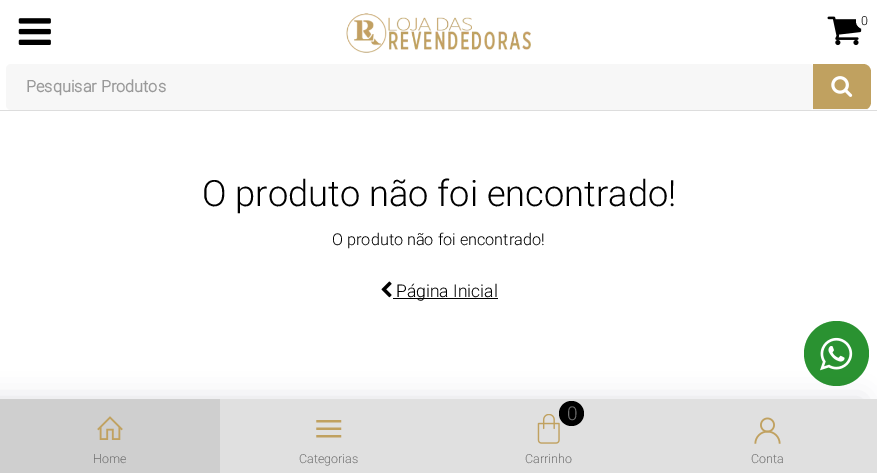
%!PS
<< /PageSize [877 473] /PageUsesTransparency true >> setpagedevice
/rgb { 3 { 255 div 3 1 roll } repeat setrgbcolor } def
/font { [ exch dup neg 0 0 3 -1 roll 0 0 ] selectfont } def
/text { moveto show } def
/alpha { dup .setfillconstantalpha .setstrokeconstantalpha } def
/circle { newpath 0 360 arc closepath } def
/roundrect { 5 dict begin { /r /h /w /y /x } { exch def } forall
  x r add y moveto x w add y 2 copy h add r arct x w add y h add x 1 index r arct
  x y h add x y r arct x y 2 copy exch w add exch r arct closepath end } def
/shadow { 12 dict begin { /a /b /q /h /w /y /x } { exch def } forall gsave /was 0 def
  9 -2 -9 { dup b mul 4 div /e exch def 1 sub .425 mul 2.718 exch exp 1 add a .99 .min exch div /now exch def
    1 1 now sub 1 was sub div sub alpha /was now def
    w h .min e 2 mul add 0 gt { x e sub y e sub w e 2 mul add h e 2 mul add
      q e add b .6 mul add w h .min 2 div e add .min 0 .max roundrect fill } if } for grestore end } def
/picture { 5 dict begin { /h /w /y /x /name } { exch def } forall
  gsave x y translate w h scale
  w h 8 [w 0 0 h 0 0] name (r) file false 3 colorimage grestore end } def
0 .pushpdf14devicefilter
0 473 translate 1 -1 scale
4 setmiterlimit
255 255 255 rgb
0 0 877 473 rectfill
221 221 221 rgb
0 110 877 1 rectfill
(img_01.rgb) 18 18 33 27 picture
(img_02.rgb) 346 13 185 40 picture
(img_03.rgb) 827 16 35 30 picture
255 255 255 rgb
856 13 17 16 8 roundrect fill
247 247 247 rgb
6 64 808 46 5 roundrect fill
192 161 96 rgb
813 64 moveto 50 0 rlineto 4.5 0 8 3.5 8 8 rcurveto 0 30 rlineto 0 4.5 -3.5 8 -8 8 rcurveto -50 0 rlineto closepath fill
247 247 247 rgb
813 109 55 1 rectfill
(img_04.rgb) 831 76 22 21 picture
(img_05.rgb) 381 281 11 17 picture
0 0 0 rgb
393 298 105 1 rectfill
42 146 49 rgb
836.5 353.5 32.5 circle fill
(img_06.rgb) 820 337 33 34 picture
43 52 69 rgb
-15 399 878 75 0 12.5 0.15 shadow
224 224 224 rgb
220 399 657 74 rectfill
207 207 207 rgb
0 399 220 74 rectfill
(img_07.rgb) 97 416 26 24 picture
(img_08.rgb) 316 420 26 18 picture
(img_09.rgb) 537 414 23 30 picture
0 0 0 rgb
571.5 413.5 12.5 circle fill
(img_10.rgb) 754 417 27 27 picture
/Roboto-Light 12.5 font
(0) 861 25 text
/Roboto-Bold 16.25 font
153 153 153 rgb
(Pesquisar Produtos) 26 92 text
/Roboto-Light 36.25 font
0 0 0 rgb
(O produto não foi encontrado!) 202 206 text
/Roboto-Light 16.25 font
(O produto não foi encontrado!) 332 245 text
/Roboto-Light 17.5 font
(Página Inicial) 396 297 text
/Roboto-Light 12.5 font
112 112 112 rgb
(Home) 93 463 text
(Categorias) 299 463 text
/Roboto-Light 19 font
(0) 567 420 text
/Roboto-Light 12.5 font
(Carrinho) 525 463 text
(Conta) 751 463 text
.poppdf14devicefilter showpage
